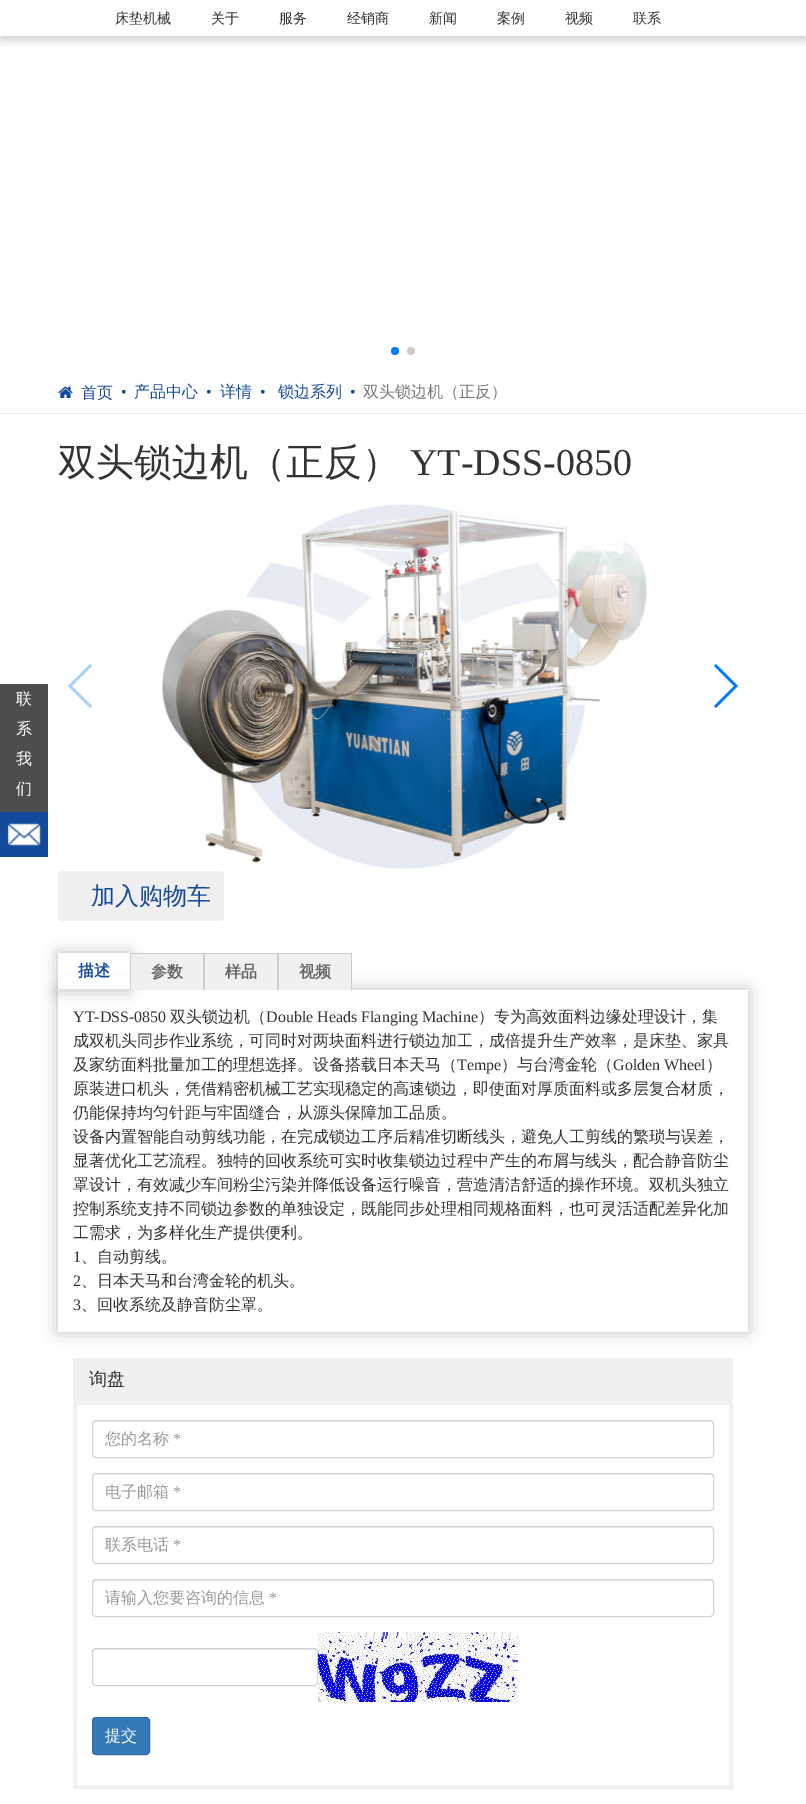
%!PS
<< /PageSize [806 1804] /PageUsesTransparency true >> setpagedevice
/rgb { 3 { 255 div 3 1 roll } repeat setrgbcolor } def
/font { [ exch dup neg 0 0 3 -1 roll 0 0 ] selectfont } def
/text { moveto show } def
/alpha { dup .setfillconstantalpha .setstrokeconstantalpha } def
/circle { newpath 0 360 arc closepath } def
/roundrect { 5 dict begin { /r /h /w /y /x } { exch def } forall
  x r add y moveto x w add y 2 copy h add r arct x w add y h add x 1 index r arct
  x y h add x y r arct x y 2 copy exch w add exch r arct closepath end } def
/shadow { 12 dict begin { /a /b /q /h /w /y /x } { exch def } forall gsave /was 0 def
  9 -2 -9 { dup b mul 4 div /e exch def 1 sub .425 mul 2.718 exch exp 1 add a .99 .min exch div /now exch def
    1 1 now sub 1 was sub div sub alpha /was now def
    w h .min e 2 mul add 0 gt { x e sub y e sub w e 2 mul add h e 2 mul add
      q e add b .6 mul add w h .min 2 div e add .min 0 .max roundrect fill } if } for grestore end } def
/picture { 5 dict begin { /h /w /y /x /name } { exch def } forall
  gsave x y translate w h scale
  w h 8 [w 0 0 h 0 0] name (r) file false 3 colorimage grestore end } def
0 .pushpdf14devicefilter
0 1804 translate 1 -1 scale
4 setmiterlimit
255 255 255 rgb
0 0 806 1804 rectfill
gsave
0 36 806 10 rectclip
0 0 0 rgb
0 4 806 36 0 5 0.2 shadow
grestore
77 77 77 rgb
0 684 48 128 rectfill
20 74 154 rgb
0 812 48 45 rectfill
(img_01.rgb) 7 823 34 23 picture
0 122 255 rgb
395 351 4 circle fill
204 204 204 rgb
411 351 4 circle fill
233 236 239 rgb
0 413 806 1 rectfill
(img_02.rgb) 58 386 15 12 picture
166 208 255 rgb
68 686 moveto 22 -22 rlineto 2 2 rlineto -20 20 rlineto 20 20 rlineto -2 2 rlineto closepath fill
(img_03.rgb) 162 504 485 365 picture
0 122 255 rgb
738 686 moveto -22 22 rlineto -2 -2 rlineto 20 -20 rlineto -20 -20 rlineto 2 -2 rlineto closepath fill
239 239 239 rgb
58 871 166 50 4 roundrect fill
gsave
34 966 moveto 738 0 rlineto 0 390 rlineto -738 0 rlineto closepath 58 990 moveto 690 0 rlineto 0 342 rlineto -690 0 rlineto closepath eoclip newpath
0 0 0 rgb
58 990 690 342 0 7.5 0.25 shadow
grestore
255 255 255 rgb
58 977 72 12 rectfill
gsave
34 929 moveto 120 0 rlineto 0 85 rlineto -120 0 rlineto closepath 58 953 moveto 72 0 rlineto 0 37 rlineto -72 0 rlineto closepath eoclip newpath
0 0 0 rgb
58 953 72 37 0 7.5 0.25 shadow
grestore
204 204 204 rgb
130 953 222 1 rectfill
203 953 2 37 rectfill
130 953 1 37 rectfill
240 240 241 rgb
131 954 72 36 rectfill
204 204 204 rgb
277 953 2 37 rectfill
240 240 241 rgb
205 954 72 36 rectfill
204 204 204 rgb
351 953 1 37 rectfill
240 240 241 rgb
279 954 72 36 rectfill
73 1358 660 43 rectfill
4 setlinewidth
75 1403 656 384 rectstroke
236 236 236 rgb
96 1422 moveto 614 0 rlineto 2 0 3 1 3 3 rcurveto 0 -1 rlineto 0 -2 -1 -3 -3 -3 rcurveto -614 0 rlineto -2 0 -3 1 -3 3 rcurveto 0 1 rlineto 0 -2 1 -3 3 -3 rcurveto closepath fill
206 212 218 rgb
1 setlinewidth
92.5 1420.5 621 37 3.5 roundrect stroke
236 236 236 rgb
96 1475 moveto 614 0 rlineto 2 0 3 1 3 3 rcurveto 0 -1 rlineto 0 -2 -1 -3 -3 -3 rcurveto -614 0 rlineto -2 0 -3 1 -3 3 rcurveto 0 1 rlineto 0 -2 1 -3 3 -3 rcurveto closepath fill
206 212 218 rgb
92.5 1473.5 621 37 3.5 roundrect stroke
236 236 236 rgb
96 1528 moveto 614 0 rlineto 2 0 3 1 3 3 rcurveto 0 -1 rlineto 0 -2 -1 -3 -3 -3 rcurveto -614 0 rlineto -2 0 -3 1 -3 3 rcurveto 0 1 rlineto 0 -2 1 -3 3 -3 rcurveto closepath fill
206 212 218 rgb
92.5 1526.5 621 37 3.5 roundrect stroke
236 236 236 rgb
96 1581 moveto 614 0 rlineto 2 0 3 1 3 3 rcurveto 0 -1 rlineto 0 -2 -1 -3 -3 -3 rcurveto -614 0 rlineto -2 0 -3 1 -3 3 rcurveto 0 1 rlineto 0 -2 1 -3 3 -3 rcurveto closepath fill
206 212 218 rgb
92.5 1579.5 621 37 3.5 roundrect stroke
236 236 236 rgb
96 1650 moveto 218 0 rlineto 2 0 3 1 3 3 rcurveto 0 -1 rlineto 0 -2 -1 -3 -3 -3 rcurveto -218 0 rlineto -2 0 -3 1 -3 3 rcurveto 0 1 rlineto 0 -2 1 -3 3 -3 rcurveto closepath fill
206 212 218 rgb
92.5 1648.5 225 37 3.5 roundrect stroke
(img_04.rgb) 318 1632 200 70 picture
51 122 183 rgb
92.5 1717.5 57 37 3.5 roundrect gsave fill grestore
46 109 164 rgb
stroke
/WenQuanYiZenHei-Medium 14 font
51 51 51 rgb
(床垫机械) 115 23 text
(关于) 211 23 text
(服务) 279 23 text
(经销商) 347 23 text
(新闻) 429 23 text
(案例) 497 23 text
(视频) 565 23 text
(联系) 633 23 text
/WenQuanYiZenHei-Medium 16 font
255 255 255 rgb
(联) 16 704 text
(系) 16 734 text
(我) 16 764 text
(们) 16 794 text
20 74 154 rgb
(首页) 81 398 text
/LiberationSerif-Regular 16 font
(•) 121 397 text
/WenQuanYiZenHei-Medium 16 font
(产品中心) 134 397 text
/LiberationSerif-Regular 16 font
(•) 206 397 text
/WenQuanYiZenHei-Medium 16 font
(详情) 220 397 text
/LiberationSerif-Regular 16 font
(•) 260 397 text
/WenQuanYiZenHei-Medium 16 font
(锁边系列) 278 397 text
/LiberationSerif-Regular 16 font
(•) 350 397 text
/WenQuanYiZenHei-Medium 16 font
119 119 119 rgb
(双头锁边机（正反）) 363 397 text
/WenQuanYiZenHei-Medium 38 font
51 51 51 rgb
(双头锁边机（正反）) 58 475 text
/LiberationSerif-Regular 38 font
(YT-DSS-0850) 410 475 text
/WenQuanYiZenHei-Medium 24 font
20 74 154 rgb
(加入购物车) 91 904 text
/WenQuanYiZenHei-Bold 16 font
(描述) 78 976 text
102 102 102 rgb
(参数) 151 977 text
(样品) 225 977 text
(视频) 299 977 text
/LiberationSerif-Regular 16 font
51 51 51 rgb
(YT-DSS-0850) 73 1022 text
/WenQuanYiZenHei-Medium 16 font
(双头锁边机（) 170 1022 text
/LiberationSerif-Regular 16 font
(Double Heads Flanging Machine) 266 1022 text
/WenQuanYiZenHei-Medium 16 font
(）专为高效面料边缘处理设计，集) 478 1022 text
(成双机头同步作业系统，可同时对两块面料进行锁边加工，成倍提升生产效率，是床垫、家具) 73 1046 text
(及家纺面料批量加工的理想选择。设备搭载日本天马（) 73 1070 text
/LiberationSerif-Regular 16 font
(Tempe) 457 1070 text
/WenQuanYiZenHei-Medium 16 font
(）与台湾金轮（) 501 1070 text
/LiberationSerif-Regular 16 font
(Golden Wheel) 613 1070 text
/WenQuanYiZenHei-Medium 16 font
(）) 706 1070 text
(原装进口机头，凭借精密机械工艺实现稳定的高速锁边，即使面对厚质面料或多层复合材质，) 73 1094 text
(仍能保持均匀针距与牢固缝合，从源头保障加工品质。) 73 1118 text
(设备内置智能自动剪线功能，在完成锁边工序后精准切断线头，避免人工剪线的繁琐与误差，) 73 1142 text
(显著优化工艺流程。独特的回收系统可实时收集锁边过程中产生的布屑与线头，配合静音防尘) 73 1166 text
(罩设计，有效减少车间粉尘污染并降低设备运行噪音，营造清洁舒适的操作环境。双机头独立) 73 1190 text
(控制系统支持不同锁边参数的单独设定，既能同步处理相同规格面料，也可灵活适配差异化加) 73 1214 text
(工需求，为多样化生产提供便利。) 73 1238 text
/LiberationSerif-Regular 16 font
(1) 73 1262 text
/WenQuanYiZenHei-Medium 16 font
(、自动剪线。) 81 1262 text
/LiberationSerif-Regular 16 font
(2) 73 1286 text
/WenQuanYiZenHei-Medium 16 font
(、日本天马和台湾金轮的机头。) 81 1286 text
/LiberationSerif-Regular 16 font
(3) 73 1310 text
/WenQuanYiZenHei-Medium 16 font
(、回收系统及静音防尘罩。) 81 1310 text
/WenQuanYiZenHei-Medium 18 font
(询盘) 89 1385 text
/WenQuanYiZenHei-Medium 16 font
153 153 153 rgb
(您的名称) 105 1444 text
/LiberationSerif-Regular 16 font
(*) 173 1444 text
/WenQuanYiZenHei-Medium 16 font
(电子邮箱) 105 1497 text
/LiberationSerif-Regular 16 font
(*) 173 1497 text
/WenQuanYiZenHei-Medium 16 font
(联系电话) 105 1550 text
/LiberationSerif-Regular 16 font
(*) 173 1550 text
/WenQuanYiZenHei-Medium 16 font
(请输入您要咨询的信息) 105 1603 text
/LiberationSerif-Regular 16 font
(*) 269 1603 text
/WenQuanYiZenHei-Medium 16 font
255 255 255 rgb
(提交) 105 1741 text
.poppdf14devicefilter showpage
